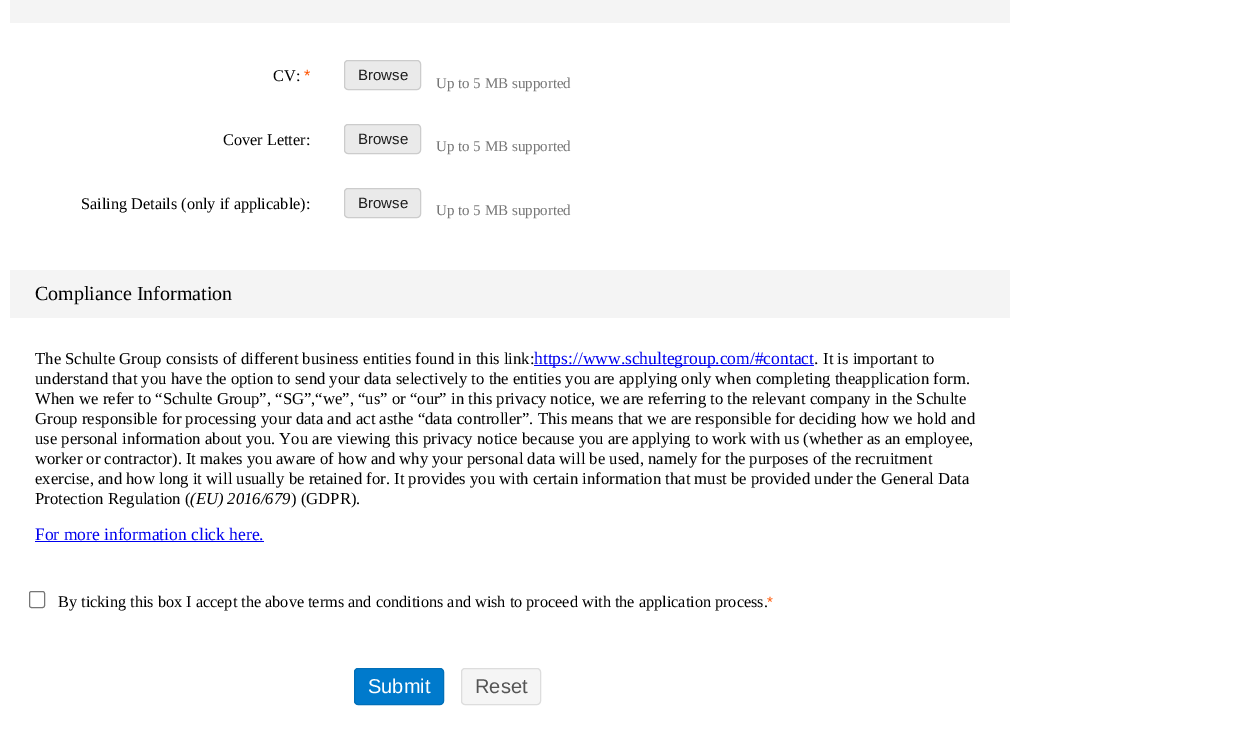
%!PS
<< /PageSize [1236 749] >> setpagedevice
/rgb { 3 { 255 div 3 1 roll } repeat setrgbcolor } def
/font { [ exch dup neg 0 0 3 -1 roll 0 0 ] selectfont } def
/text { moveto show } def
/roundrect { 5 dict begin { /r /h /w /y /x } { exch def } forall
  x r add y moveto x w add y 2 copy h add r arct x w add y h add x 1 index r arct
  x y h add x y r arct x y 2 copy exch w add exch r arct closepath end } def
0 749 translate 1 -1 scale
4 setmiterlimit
255 255 255 rgb
0 0 1236 749 rectfill
244 244 244 rgb
10 0 1000 23 rectfill
234 234 234 rgb
344.5 60.5 76 29 3.5 roundrect gsave fill grestore
204 204 204 rgb
stroke
234 234 234 rgb
344.5 124.5 76 29 3.5 roundrect gsave fill grestore
204 204 204 rgb
stroke
234 234 234 rgb
344.5 188.5 76 29 3.5 roundrect gsave fill grestore
204 204 204 rgb
stroke
244 244 244 rgb
10 270 1000 48 rectfill
0 0 238 rgb
534 365 280 1 rectfill
35 541 229 1 rectfill
118 118 118 rgb
29.5 591.5 15 16 2 roundrect stroke
0 122 204 rgb
354.5 668.5 89 36 3.5 roundrect gsave fill grestore
1 111 184 rgb
stroke
245 245 245 rgb
461.5 668.5 79 36 3.5 roundrect gsave fill grestore
221 221 221 rgb
stroke
/LiberationSerif-Regular 16.25 font
0 0 0 rgb
(CV:) 273 81 text
/LiberationSans-Regular 16.25 font
255 84 0 rgb
(*) 304 81 text
/LiberationSans-Regular 15 font
30 30 30 rgb
(Browse) 358 80 text
/LiberationSerif-Regular 15 font
119 119 119 rgb
(Up to 5 MB supported) 436 88 text
/LiberationSerif-Regular 16.25 font
0 0 0 rgb
(Cover Letter:) 223 145 text
/LiberationSans-Regular 15 font
30 30 30 rgb
(Browse) 358 144 text
/LiberationSerif-Regular 15 font
119 119 119 rgb
(Up to 5 MB supported) 436 151 text
/LiberationSerif-Regular 16.25 font
0 0 0 rgb
(Sailing Details \(only if applicable\):) 81 209 text
/LiberationSans-Regular 15 font
30 30 30 rgb
(Browse) 358 208 text
/LiberationSerif-Regular 15 font
119 119 119 rgb
(Up to 5 MB supported) 436 215 text
/LiberationSerif-Regular 20 font
0 0 0 rgb
(Compliance Information) 35 300 text
/LiberationSerif-Regular 16.67 font
(The Schulte Group consists of different business entities found in this link:) 35 364 text
/LiberationSerif-Regular 17.5 font
0 0 238 rgb
(https://www.schultegroup.com/#contact) 534 364 text
0 0 0 rgb
(.) 814 364 text
/LiberationSerif-Regular 16.67 font
(It is important to) 823 364 text
(understand that you have the option to send your data selectively to the entities you are applying only when completing theapplication form.) 35 384 text
(When we refer to “Schulte Group”, “SG”,“we”, “us” or “our” in this privacy notice, we are referring to the relevant company in the Schulte) 35 404 text
(Group responsible for processing your data and act asthe “data controller”. This means that we are responsible for deciding how we hold and) 35 424 text
(use personal information about you. You are viewing this privacy notice because you are applying to work with us \(whether as an employee,) 35 444 text
(worker or contractor\). It makes you aware of how and why your personal data will be used, namely for the purposes of the recruitment) 35 464 text
(exercise, and how long it will usually be retained for. It provides you with certain information that must be provided under the General Data) 35 484 text
(Protection Regulation \() 35 504 text
/LiberationSerif-Italic 16.67 font
(\(EU\) 2016/679) 190 504 text
/LiberationSerif-Regular 16.67 font
(\) \(GDPR\).) 291 504 text
/LiberationSerif-Regular 17.5 font
0 0 238 rgb
(For more information click here.) 35 540 text
/LiberationSerif-Regular 16.25 font
0 0 0 rgb
(By ticking this box I accept the above terms and conditions and wish to proceed with the application process.) 58 607 text
/LiberationSans-Regular 15 font
255 84 0 rgb
(*) 767 607 text
/LiberationSans-Regular 20 font
255 255 255 rgb
(Submit) 368 693 text
85 85 85 rgb
(Reset) 475 693 text
showpage
